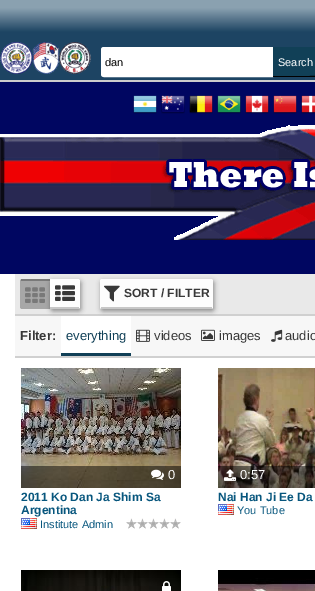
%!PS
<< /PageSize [315 591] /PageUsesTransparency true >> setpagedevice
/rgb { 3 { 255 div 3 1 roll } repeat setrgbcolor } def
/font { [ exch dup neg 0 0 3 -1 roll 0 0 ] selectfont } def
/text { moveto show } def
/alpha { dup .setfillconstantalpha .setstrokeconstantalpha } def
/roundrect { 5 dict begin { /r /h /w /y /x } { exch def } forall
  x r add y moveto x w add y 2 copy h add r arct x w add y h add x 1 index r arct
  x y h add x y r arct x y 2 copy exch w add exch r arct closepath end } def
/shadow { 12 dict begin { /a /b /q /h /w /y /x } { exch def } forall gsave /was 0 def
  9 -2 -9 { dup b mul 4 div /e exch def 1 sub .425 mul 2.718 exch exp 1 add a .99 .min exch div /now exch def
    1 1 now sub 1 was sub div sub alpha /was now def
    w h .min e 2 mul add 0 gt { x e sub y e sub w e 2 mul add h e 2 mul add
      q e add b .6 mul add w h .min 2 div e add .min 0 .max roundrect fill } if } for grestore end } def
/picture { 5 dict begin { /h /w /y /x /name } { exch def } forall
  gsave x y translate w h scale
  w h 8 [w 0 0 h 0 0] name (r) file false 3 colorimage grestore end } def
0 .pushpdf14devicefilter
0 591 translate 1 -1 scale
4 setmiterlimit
0 6 97 rgb
0 0 315 591 rectfill
gsave 0 0 moveto 315 0 rlineto 0 80 rlineto -315 0 rlineto closepath clip newpath
<< /ShadingType 2 /ColorSpace /DeviceRGB /Coords [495 80 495 0] /Extend [true true] /Function << /FunctionType 3 /Domain [0 1] /Functions [<< /FunctionType 2 /Domain [0 1] /C0 [0.114 0.267 0.388] /C1 [0.114 0.267 0.388] /N 1 >> << /FunctionType 2 /Domain [0 1] /C0 [0.114 0.267 0.388] /C1 [0.541 0.631 0.69] /N 1 >> << /FunctionType 2 /Domain [0 1] /C0 [0.541 0.631 0.69] /C1 [0.541 0.631 0.69] /N 1 >>] /Bounds [0.6 0.9] /Encode [0 1 0 1 0 1] >> >> shfill grestore
204 204 204 rgb
0 80 315 2 rectfill
(img_01.rgb) 0 42 91 32 picture
255 255 255 rgb
104 47.5 moveto 168.5 0 rlineto 0 29 rlineto -168.5 0 rlineto -1.5 0 -2.5 -1 -2.5 -2.5 rcurveto 0 -24 rlineto 0 -1.5 1 -2.5 2.5 -2.5 rcurveto closepath gsave fill grestore
stroke
17 64 87 rgb
273 47 42 30 rectfill
0 0 0 rgb
273 76 moveto 0 1 rlineto 36 0 rlineto 5 0 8 0 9 -1 rcurveto -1 -1 rlineto -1 1 -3 1 -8 1 rcurveto closepath fill
(img_02.rgb) 133 95 24 19 picture
(img_03.rgb) 161 95 24 19 picture
(img_04.rgb) 189 95 24 19 picture
(img_05.rgb) 217 95 24 19 picture
(img_06.rgb) 245 95 24 19 picture
(img_07.rgb) 273 95 24 19 picture
(img_08.rgb) 301 95 14 19 picture
(img_09.rgb) 0 125 315 115 picture
255 255 255 rgb
0 274 315 317 rectfill
233 233 233 rgb
15 274 300 40 rectfill
208 208 208 rgb
15 314 300 2 rectfill
167 167 167 rgb
22 279 moveto 28 0 rlineto 0 30 rlineto -28 0 rlineto -1 0 -2 -1 -2 -2 rcurveto 0 -26 rlineto 0 -1 1 -2 2 -2 rcurveto closepath fill
121 121 121 rgb
21 279 29 2 rectfill
(img_10.rgb) 25 287 20 16 picture
247 247 247 rgb
15 316 300 40 rectfill
0 0 0 rgb
51 281 30 30 2 2.5 0.4 shadow
253 253 253 rgb
50 279 moveto 28 0 rlineto 1 0 2 1 2 2 rcurveto 0 26 rlineto 0 1 -1 2 -2 2 rcurveto -28 0 rlineto closepath fill
199 199 199 rgb
50 307 29 2 rectfill
(img_11.rgb) 55 285 20 16 picture
0 0 0 rgb
101 281 113 30 2 2.5 0.4 shadow
253 253 253 rgb
100 279 113 30 2 roundrect fill
199 199 199 rgb
101 307 111 2 rectfill
(img_12.rgb) 104 285 16 17 picture
208 208 208 rgb
15 356 300 2 rectfill
255 255 255 rgb
61 316 70 37 rectfill
17 64 87 rgb
61 353 70 3 rectfill
(img_13.rgb) 136 329 14 13 picture
(img_14.rgb) 201 329 14 12 picture
(img_15.rgb) 271 329 12 13 picture
(img_16.rgb) 21 368 160 120 picture
0.5 alpha
0 0 0 rgb
21 466 160 22 rectfill
1 alpha
(img_17.rgb) 151 469 13 11 picture
(img_18.rgb) 21 518 16 11 picture
(img_19.rgb) 126 518 55 11 picture
(img_20.rgb) 218 368 97 120 picture
0.5 alpha
218 466 97 22 rectfill
1 alpha
(img_21.rgb) 224 469 13 12 picture
(img_18.rgb) 218 504 16 11 picture
(img_22.rgb) 21 570 160 21 picture
(img_23.rgb) 162 581 9 10 picture
218 570 97 8 rectfill
(img_24.rgb) 218 578 97 13 picture
/LiberationSans-Regular 11 font
(dan) 105 66 text
255 255 255 rgb
(Search) 278 66 text
/LiberationSans-Bold 12 font
56 56 56 rgb
(SORT / FILTER) 124 297 text
/LiberationSans-Bold 13 font
(Filter:) 20 340 text
/LiberationSans-Regular 13 font
17 64 87 rgb
(everything) 66 340 text
56 56 56 rgb
(videos) 154 340 text
(images) 219 340 text
(audio) 285 340 text
255 255 255 rgb
(0) 168 479 text
/LiberationSans-Bold 12 font
7 86 125 rgb
(2011 Ko Dan Ja Shim Sa) 21 501 text
(Argentina) 21 514 text
/LiberationSans-Regular 11 font
(Institute Admin) 40 528 text
/LiberationSans-Regular 13 font
255 255 255 rgb
(0:57) 240 479 text
/LiberationSans-Bold 12 font
7 86 125 rgb
(Nai Han Ji Ee Da) 218 501 text
/LiberationSans-Regular 11 font
(You Tube) 237 514 text
.poppdf14devicefilter showpage
